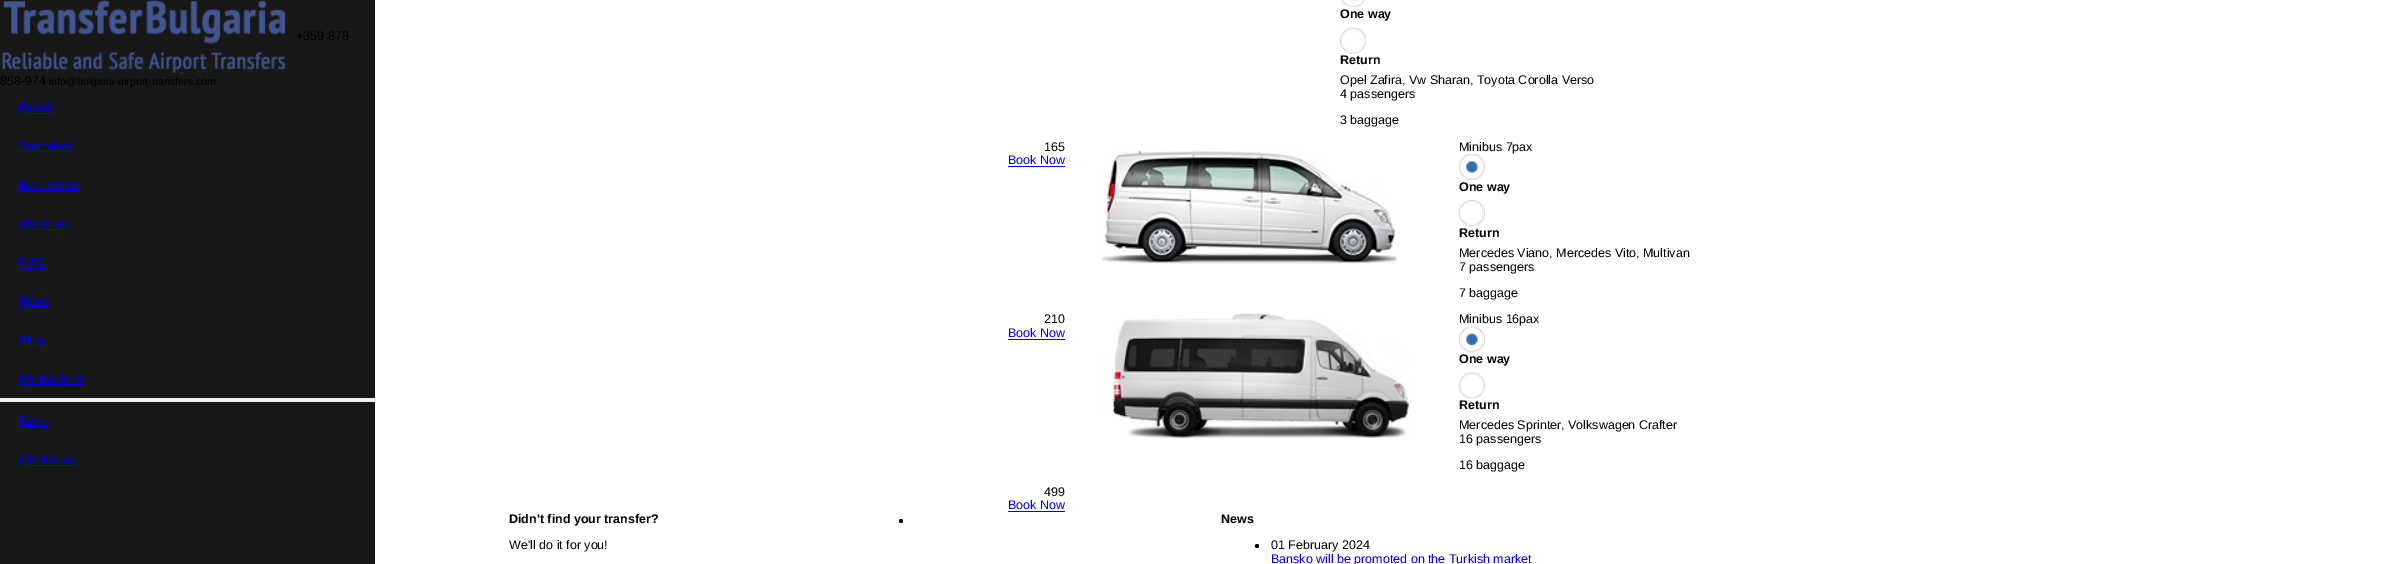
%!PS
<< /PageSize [2404 564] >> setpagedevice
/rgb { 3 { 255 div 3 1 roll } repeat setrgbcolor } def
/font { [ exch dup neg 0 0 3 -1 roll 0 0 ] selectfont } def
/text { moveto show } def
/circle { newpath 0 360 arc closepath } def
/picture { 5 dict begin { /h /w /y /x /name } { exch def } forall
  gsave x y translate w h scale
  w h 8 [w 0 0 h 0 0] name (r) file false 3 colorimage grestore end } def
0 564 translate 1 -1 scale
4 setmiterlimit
255 255 255 rgb
0 0 2404 564 rectfill
25 24 24 rgb
0 0 375 564 rectfill
(img_01.rgb) 2 0 284 74 picture
243 243 243 rgb
0 398 375 4 rectfill
0 0 238 rgb
19 113 34 1 rectfill
19 151 52 1 rectfill
19 190 61 1 rectfill
19 229 49 1 rectfill
19 268 26 1 rectfill
19 306 31 1 rectfill
19 345 25 1 rectfill
19 384 65 1 rectfill
19 426 30 1 rectfill
19 465 61 1 rectfill
(img_02.rgb) 1341 0 25 8 picture
(img_03.rgb) 1340 27 26 27 picture
1008 166 57 1 rectfill
(img_04.rgb) 1102 150 295 114 picture
(img_05.rgb) 1459 154 26 26 picture
(img_06.rgb) 1459 200 26 26 picture
1008 339 57 1 rectfill
(img_07.rgb) 1103 313 308 126 picture
(img_08.rgb) 1459 326 26 27 picture
(img_09.rgb) 1459 372 26 27 picture
1008 511 57 1 rectfill
0 0 0 rgb
901 521 2 circle fill
1257 546 2 circle fill
/LiberationSans-Regular 12.5 font
(+359 878-) 296 40 text
(858-974) 0 85 text
/LiberationSans-Regular 10.6 font
(info@bulgaria-airport-transfers.com) 49 85 text
/LiberationSans-Regular 12.5 font
0 0 238 rgb
(Home) 19 111 text
(Transfers) 19 150 text
(Excursions) 19 189 text
(About us) 19 228 text
(FAQ) 19 266 text
(News) 19 305 text
(Blog) 19 344 text
(My Booking) 19 383 text
(Euro,) 19 425 text
(GB Pound,) 19 464 text
/LiberationSans-Bold 12.5 font
0 0 0 rgb
(One way) 1340 18 text
(Return) 1340 64 text
/LiberationSans-Regular 12.5 font
(Opel Zafira, Vw Sharan, Toyota Corolla Verso) 1340 84 text
(4 passengers) 1340 98 text
(3 baggage) 1340 124 text
(165) 1044 151 text
0 0 238 rgb
(Book Now) 1008 164 text
0 0 0 rgb
(Minibus 7pax) 1459 151 text
/LiberationSans-Bold 12.5 font
(One way) 1459 191 text
(Return) 1459 237 text
/LiberationSans-Regular 12.5 font
(Mercedes Viano, Mercedes Vito, Multivan) 1459 257 text
(7 passengers) 1459 271 text
(7 baggage) 1459 297 text
(210) 1044 323 text
0 0 238 rgb
(Book Now) 1008 337 text
0 0 0 rgb
(Minibus 16pax) 1459 323 text
/LiberationSans-Bold 12.5 font
(One way) 1459 363 text
(Return) 1459 409 text
/LiberationSans-Regular 12.5 font
(Mercedes Sprinter, Volkswagen Crafter) 1459 429 text
(16 passengers) 1459 443 text
(16 baggage) 1459 469 text
(499) 1044 496 text
0 0 238 rgb
(Book Now) 1008 509 text
/LiberationSans-Bold 12.5 font
0 0 0 rgb
(Didn't find your transfer?) 509 523 text
/LiberationSans-Regular 12.5 font
(We'll do it for you!) 509 549 text
/LiberationSans-Bold 12.5 font
(News) 1221 523 text
/LiberationSans-Regular 12.5 font
(01 February 2024) 1271 549 text
0 0 238 rgb
(Bansko will be promoted on the Turkish market) 1271 563 text
showpage
